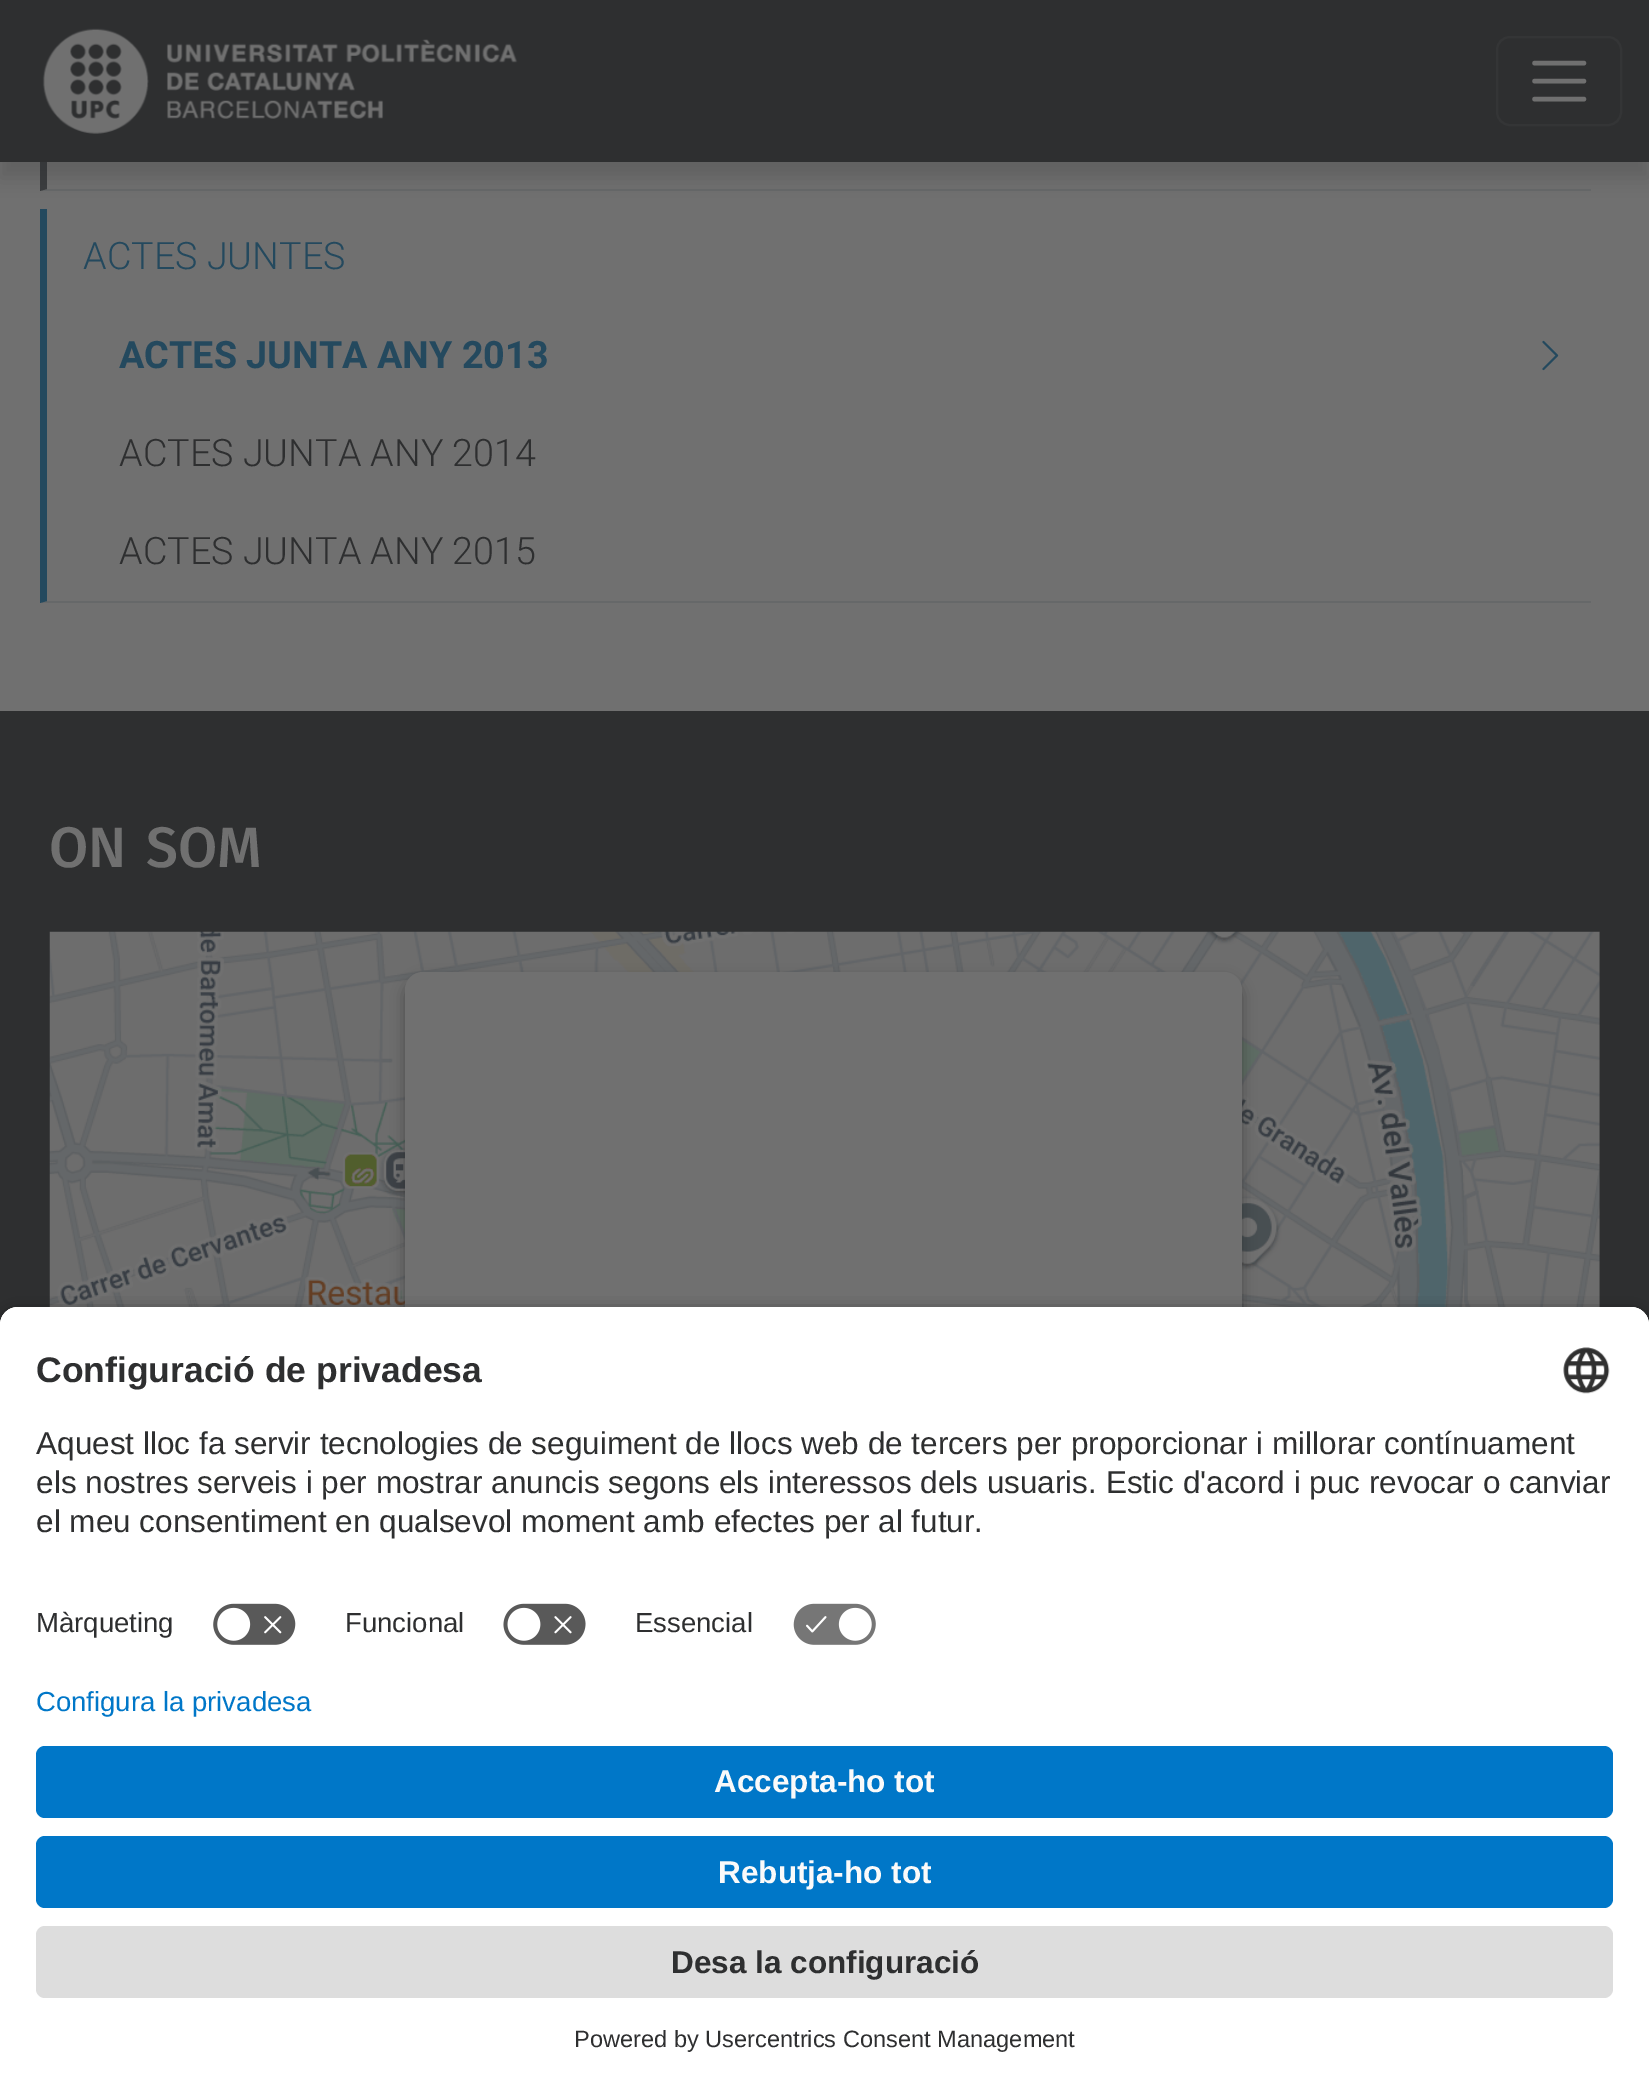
%!PS
<< /PageSize [1649 2088] /PageUsesTransparency true >> setpagedevice
/rgb { 3 { 255 div 3 1 roll } repeat setrgbcolor } def
/font { [ exch dup neg 0 0 3 -1 roll 0 0 ] selectfont } def
/text { moveto show } def
/alpha { dup .setfillconstantalpha .setstrokeconstantalpha } def
/roundrect { 5 dict begin { /r /h /w /y /x } { exch def } forall
  x r add y moveto x w add y 2 copy h add r arct x w add y h add x 1 index r arct
  x y h add x y r arct x y 2 copy exch w add exch r arct closepath end } def
/shadow { 12 dict begin { /a /b /q /h /w /y /x } { exch def } forall gsave /was 0 def
  9 -2 -9 { dup b mul 4 div /e exch def 1 sub .425 mul 2.718 exch exp 1 add a .99 .min exch div /now exch def
    1 1 now sub 1 was sub div sub alpha /was now def
    w h .min e 2 mul add 0 gt { x e sub y e sub w e 2 mul add h e 2 mul add
      q e add b .6 mul add w h .min 2 div e add .min 0 .max roundrect fill } if } for grestore end } def
/picture { 5 dict begin { /h /w /y /x /name } { exch def } forall
  gsave x y translate w h scale
  w h 8 [w 0 0 h 0 0] name (r) file false 3 colorimage grestore end } def
0 .pushpdf14devicefilter
0 2088 translate 1 -1 scale
4 setmiterlimit
112 112 112 rgb
0 0 1649 2088 rectfill
102 104 105 rgb
1591 191 moveto -1551 0 rlineto 7 -2 rlineto 1544 0 rlineto closepath fill
58 60 62 rgb
40 191 moveto 0 -101 rlineto 7 0 rlineto 0 99 rlineto closepath fill
36 36 36 rgb
0 16 1649 162 0 9 0.2 shadow
46 47 48 rgb
0 0 1649 162 rectfill
(img_01.rgb) 42 28 476 106 picture
52 53 54 rgb
2 setlinewidth
1497 37 124 88 13 roundrect stroke
112 112 112 rgb
4.5 setlinewidth
1 setlinecap
1534.5 63 moveto 49.5 0 rlineto 1534.5 81 moveto 49.5 0 rlineto 1534.5 99 moveto 49.5 0 rlineto stroke
102 104 105 rgb
1591 603 moveto -1551 0 rlineto 7 -2 rlineto 1544 0 rlineto closepath fill
36 73 94 rgb
40 603 moveto 0 -394 rlineto 7 0 rlineto 0 392 rlineto closepath fill
(img_02.rgb) 1542 340 17 31 picture
46 47 48 rgb
0 711 1649 614 rectfill
(img_03.rgb) 49 931 1551 376 picture
36 36 36 rgb
405 979 837 641 18 7 0.5 shadow
112 112 112 rgb
405 972 837 641 18 roundrect fill
0 0 0 rgb
0 1314 1649 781 18 8 0.8 shadow
255 255 255 rgb
18 1307 moveto 1613 0 rlineto 10 0 18 8 18 18 rcurveto 0 363 rlineto -1649 0 rlineto 0 -363 rlineto 0 -10 8 -18 18 -18 rcurveto closepath fill
18 1307 moveto 1613 0 rlineto 10 0 18 8 18 18 rcurveto 0 264 rlineto -1649 0 rlineto 0 -264 rlineto 0 -10 8 -18 18 -18 rcurveto closepath fill
(img_04.rgb) 1563 1347 47 47 picture
(img_05.rgb) 213 1603 83 42 picture
(img_06.rgb) 503 1603 83 42 picture
(img_07.rgb) 793 1603 83 42 picture
0 1688 1649 400 rectfill
0 119 200 rgb
36 1746 1577 72 9 roundrect fill
36 1836 1577 72 9 roundrect fill
221 221 221 rgb
36 1926 1577 72 9 roundrect fill
/Roboto-Light 37.75 font
36 73 94 rgb
(ACTES JUNTES) 83 269 text
/Roboto-Bold 37.75 font
(ACTES JUNTA ANY 2013) 119 368 text
/Roboto-Light 37.75 font
46 47 48 rgb
(ACTES JUNTA ANY 2014) 119 466 text
(ACTES JUNTA ANY 2015) 119 564 text
/FiraSans-Medium 57 font
112 112 112 rgb
(ON) 49 867 text
(SOM) 146 867 text
/LiberationSans-Bold 35.5 font
46 47 48 rgb
(Configuració de privadesa) 36 1382 text
/LiberationSans-Regular 31.5 font
(Aquest lloc fa servir tecnologies de seguiment de llocs web de tercers per proporcionar i millorar contínuament) 36 1454 text
(els nostres serveis i per mostrar anuncis segons els interessos dels usuaris. Estic d'acord i puc revocar o canviar) 36 1493 text
(el meu consentiment en qualsevol moment amb efectes per al futur.) 36 1532 text
/LiberationSans-Regular 27.5 font
(Màrqueting) 36 1632 text
(Funcional) 345 1632 text
(Essencial) 635 1632 text
0 119 200 rgb
(Configura la privadesa) 36 1711 text
/LiberationSans-Bold 31.5 font
250 250 250 rgb
(Accepta-ho tot) 714 1792 text
(Rebutja-ho tot) 718 1883 text
46 47 48 rgb
(Desa la configuració) 671 1973 text
/LiberationSans-Regular 23.6 font
(Powered by Usercentrics Consent Management) 574 2047 text
.poppdf14devicefilter showpage
